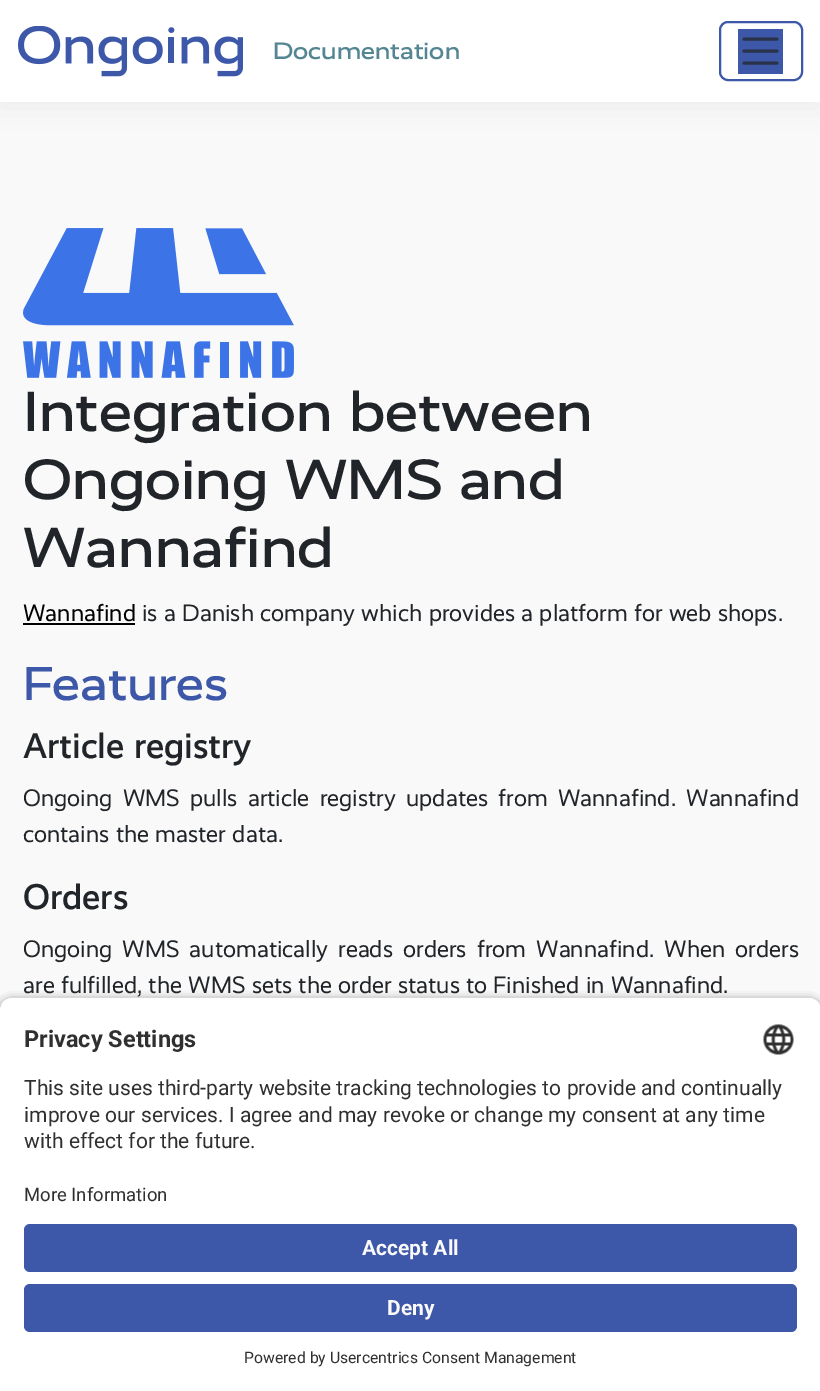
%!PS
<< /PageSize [820 1391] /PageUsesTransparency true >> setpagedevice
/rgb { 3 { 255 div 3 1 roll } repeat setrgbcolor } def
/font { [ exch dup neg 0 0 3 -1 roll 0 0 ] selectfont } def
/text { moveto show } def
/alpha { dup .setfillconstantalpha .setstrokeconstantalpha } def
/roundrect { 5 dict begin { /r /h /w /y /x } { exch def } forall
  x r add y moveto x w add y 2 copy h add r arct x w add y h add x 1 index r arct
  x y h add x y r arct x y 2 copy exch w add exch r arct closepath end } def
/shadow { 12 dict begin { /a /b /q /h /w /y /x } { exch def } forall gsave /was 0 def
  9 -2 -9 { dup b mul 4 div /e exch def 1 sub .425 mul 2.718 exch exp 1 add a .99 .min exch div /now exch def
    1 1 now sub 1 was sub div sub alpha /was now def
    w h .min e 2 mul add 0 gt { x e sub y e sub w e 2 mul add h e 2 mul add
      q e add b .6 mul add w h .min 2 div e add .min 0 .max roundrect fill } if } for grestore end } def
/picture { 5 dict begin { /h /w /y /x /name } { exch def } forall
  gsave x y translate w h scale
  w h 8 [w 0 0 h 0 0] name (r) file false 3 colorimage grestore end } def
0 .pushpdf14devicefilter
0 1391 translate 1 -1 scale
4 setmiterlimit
249 249 249 rgb
0 0 820 1391 rectfill
0 0 0 rgb
0 5 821 102 0 15 0.05 shadow
255 255 255 rgb
0 0 820 102 rectfill
(img_01.rgb) 18 26 225 51 picture
61 87 169 rgb
2 setlinewidth
720 22 82 58 8 roundrect stroke
738 29 45 45 rectfill
40 50 73 rgb
3 setlinewidth
1 setlinecap
744 39 moveto 33 0 rlineto 744 51 moveto 33 0 rlineto 744 63 moveto 33 0 rlineto stroke
(img_02.rgb) 23 228 271 150 picture
0 0 0 rgb
23 623 112 2 rectfill
0 1002 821 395 12 5 0.8 shadow
255 255 255 rgb
12 998 moveto 797 0 rlineto 6.5 0 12 5.5 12 12 rcurveto 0 175 rlineto -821 0 rlineto 0 -175 rlineto 0 -6.5 5.5 -12 12 -12 rcurveto closepath fill
(img_03.rgb) 763 1024 31 31 picture
0 1185 820 206 rectfill
61 87 169 rgb
24 1224 773 48 6 roundrect fill
24 1284 773 48 6 roundrect fill
/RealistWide-Medium 24 font
84 133 147 rgb
(Documentation) 273 59 text
/RealistWide-Medium 57 font
33 37 41 rgb
(Integration between) 23 431 text
(Ongoing WMS and) 23 499 text
(Wannafind) 23 567 text
/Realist-Regular 24 font
0 0 0 rgb
(Wannafind) 23 621 text
33 37 41 rgb
(is a Danish company which provides a platform for web shops.) 142 621 text
/RealistWide-Medium 48 font
61 87 169 rgb
(Features) 23 700 text
/Realist-Medium 36 font
33 37 41 rgb
(Article registry) 23 758 text
/Realist-Regular 24 font
23 806 moveto 4 0 32 (Ongoing WMS pulls article registry updates from Wannafind. Wannafind) widthshow
(contains the master data.) 23 842 text
/Realist-Medium 36 font
(Orders) 23 909 text
/Realist-Regular 24 font
23 957 moveto 3.75 0 32 (Ongoing WMS automatically reads orders from Wannafind. When orders) widthshow
(are fulfilled, the WMS sets the order status to Finished in Wannafind.) 23 993 text
/Roboto-Bold 23.5 font
48 48 48 rgb
(Privacy Settings) 24 1047 text
/Roboto-Regular 21 font
(This site uses third-party website tracking technologies to provide and continually) 24 1095 text
(improve our services. I agree and may revoke or change my consent at any time) 24 1122 text
(with effect for the future.) 24 1148 text
/Roboto-Regular 18.5 font
(More Information) 24 1201 text
/Roboto-Bold 21 font
250 250 250 rgb
(Accept All) 362 1255 text
(Deny) 387 1315 text
/Roboto-Regular 15.75 font
48 48 48 rgb
(Powered by Usercentrics Consent Management) 244 1363 text
.poppdf14devicefilter showpage
